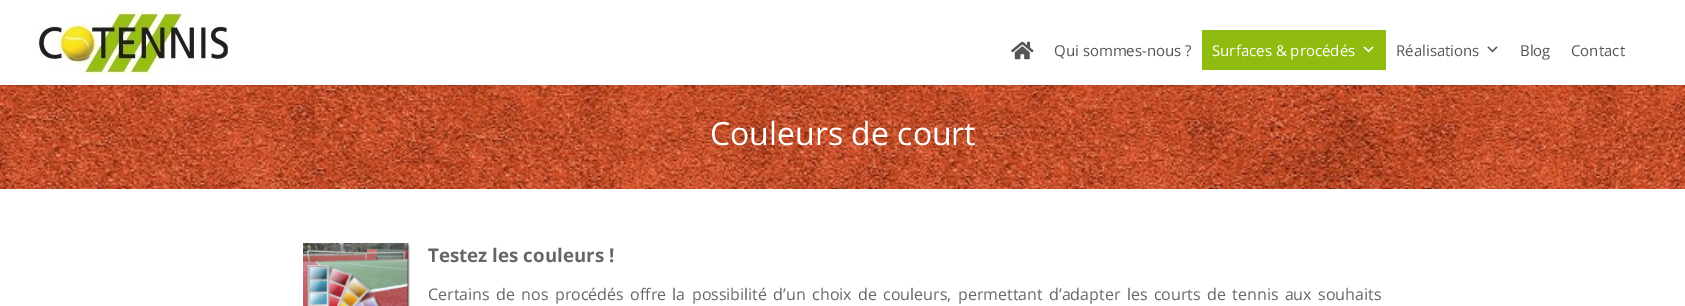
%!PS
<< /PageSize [1685 306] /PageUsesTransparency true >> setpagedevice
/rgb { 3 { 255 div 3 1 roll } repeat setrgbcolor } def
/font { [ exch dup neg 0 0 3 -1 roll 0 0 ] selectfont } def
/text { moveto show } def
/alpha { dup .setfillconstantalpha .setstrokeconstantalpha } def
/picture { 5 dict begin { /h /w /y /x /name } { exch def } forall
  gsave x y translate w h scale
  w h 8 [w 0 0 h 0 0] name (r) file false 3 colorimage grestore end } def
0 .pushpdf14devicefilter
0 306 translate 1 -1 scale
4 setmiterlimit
255 255 255 rgb
0 0 1685 306 rectfill
(img_05.rgb) 0 85 1685 104 picture
0.1 alpha
0 0 0 rgb
0 85 1685 1 rectfill
1 alpha
(img_01.rgb) 38 10 190 65 picture
(img_02.rgb) 1011 41 23 19 picture
144 188 15 rgb
1202 30 184 40 rectfill
(img_03.rgb) 1363 46 11 7 picture
(img_04.rgb) 1487 46 11 7 picture
(img_06.rgb) 303 243 107 63 picture
/OpenSans-Regular 15 font
85 85 85 rgb
(Qui sommes-nous ?) 1054 56 text
255 255 255 rgb
(Surfaces & procédés) 1212 56 text
85 85 85 rgb
(Réalisations) 1396 56 text
(Blog) 1520 56 text
(Contact) 1571 56 text
/OpenSans-Regular 32 font
255 255 255 rgb
(Couleurs de court) 710 145 text
/OpenSans-Bold 18.75 font
102 102 102 rgb
(Testez les couleurs !) 428 262 text
/OpenSans-Regular 16 font
428 300 moveto 2.25 0 32 (Certains de nos procédés offre la possibilité d’un choix de couleurs, permettant d’adapter les courts de tennis aux souhaits) widthshow
.poppdf14devicefilter showpage
